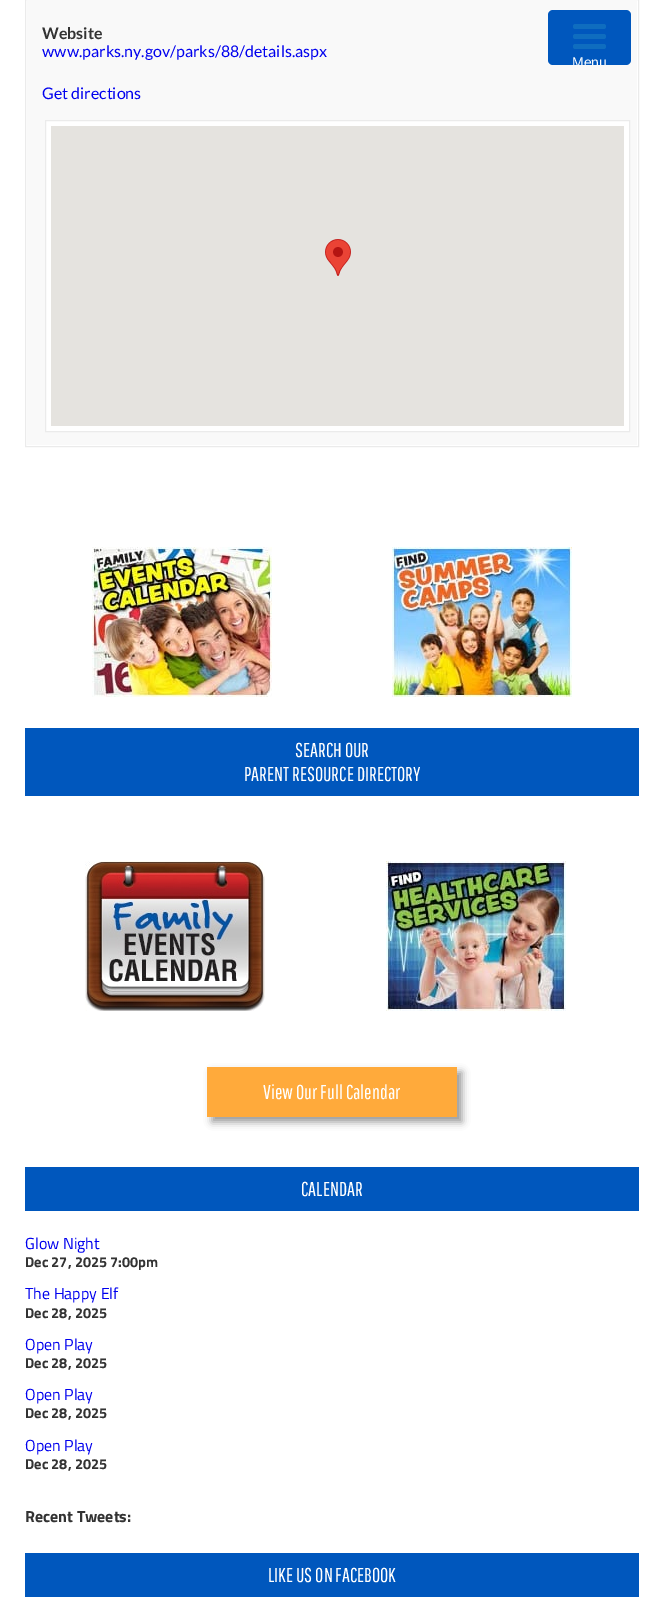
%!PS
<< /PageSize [664 1620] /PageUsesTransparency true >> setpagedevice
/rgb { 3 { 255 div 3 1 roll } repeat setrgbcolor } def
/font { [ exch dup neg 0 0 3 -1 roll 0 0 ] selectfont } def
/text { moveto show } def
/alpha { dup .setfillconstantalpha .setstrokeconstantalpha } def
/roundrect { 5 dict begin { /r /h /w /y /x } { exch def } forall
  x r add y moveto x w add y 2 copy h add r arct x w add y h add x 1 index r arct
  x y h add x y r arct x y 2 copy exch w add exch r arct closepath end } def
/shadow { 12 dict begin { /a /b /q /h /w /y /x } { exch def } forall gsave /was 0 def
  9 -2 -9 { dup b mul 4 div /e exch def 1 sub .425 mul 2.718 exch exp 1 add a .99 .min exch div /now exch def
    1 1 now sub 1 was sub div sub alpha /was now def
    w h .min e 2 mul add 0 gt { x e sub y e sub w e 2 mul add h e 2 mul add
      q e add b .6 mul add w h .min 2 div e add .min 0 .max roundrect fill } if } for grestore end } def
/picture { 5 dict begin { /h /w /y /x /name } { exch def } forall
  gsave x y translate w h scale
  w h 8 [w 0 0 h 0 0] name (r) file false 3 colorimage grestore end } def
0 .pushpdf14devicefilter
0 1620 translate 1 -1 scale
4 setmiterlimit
255 255 255 rgb
0 0 664 1620 rectfill
235 235 235 rgb
25.5 -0.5 613 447 rectstroke
249 249 249 rgb
27 0 610 445 rectfill
255 255 255 rgb
45.5 120.5 moveto 584 0 rlineto 0 311 rlineto -584 0 rlineto closepath gsave fill grestore
235 235 235 rgb
stroke
229 227 223 rgb
51 126 573 300 rectfill
(img_01.rgb) 325 239 26 37 picture
(img_02.rgb) 92 547 180 150 picture
(img_03.rgb) 392 547 180 150 picture
0 87 189 rgb
25 728 614 68 rectfill
(img_04.rgb) 85 861 180 150 picture
(img_05.rgb) 386 861 180 150 picture
0 0 0 rgb
212 1072 250 50 0 4 0.4 shadow
255 170 59 rgb
207 1067 250 50 rectfill
0 87 189 rgb
25 1167 614 44 rectfill
25 1553 614 44 rectfill
548 10 83 55 5 roundrect fill
15 109 191 rgb
573 34 33 5 2.5 roundrect fill
573 24 33 5 2.5 roundrect fill
573 44 33 5 2.5 roundrect fill
/Lato-Bold 16 font
51 51 51 rgb
(Website) 42 39 text
/Lato-Regular 16 font
0 0 238 rgb
(www.parks.ny.gov/parks/88/details.aspx) 42 57 text
(Get directions) 42 99 text
/PathwayGothicOne-Regular 20 font
255 255 255 rgb
(SEARCH OUR) 295 757 text
(PARENT RESOURCE DIRECTORY) 244 781 text
(View Our Full Calendar) 263 1099 text
(CALENDAR) 301 1196 text
/TitilliumWeb-Regular 16 font
0 0 238 rgb
(Glow Night) 25 1249 text
/TitilliumWeb-Bold 14.5 font
51 51 51 rgb
(Dec 27, 2025 7:00pm) 25 1267 text
/TitilliumWeb-Regular 16 font
0 0 238 rgb
(The Happy Elf) 25 1299 text
/TitilliumWeb-Bold 14.5 font
51 51 51 rgb
(Dec 28, 2025) 25 1318 text
/TitilliumWeb-Regular 16 font
0 0 238 rgb
(Open Play) 25 1350 text
/TitilliumWeb-Bold 14.5 font
51 51 51 rgb
(Dec 28, 2025) 25 1368 text
/TitilliumWeb-Regular 16 font
0 0 238 rgb
(Open Play) 25 1400 text
/TitilliumWeb-Bold 14.5 font
51 51 51 rgb
(Dec 28, 2025) 25 1418 text
/TitilliumWeb-Regular 16 font
0 0 238 rgb
(Open Play) 25 1451 text
/TitilliumWeb-Bold 14.5 font
51 51 51 rgb
(Dec 28, 2025) 25 1469 text
/TitilliumWeb-Bold 16 font
(Recent Tweets:) 25 1522 text
/PathwayGothicOne-Regular 20 font
255 255 255 rgb
(LIKE US ON FACEBOOK) 268 1582 text
gsave
548 10 83 55 5 roundrect clip newpath
/LiberationSans-Regular 14 font
(Menu) 572 67 text
grestore
.poppdf14devicefilter showpage
